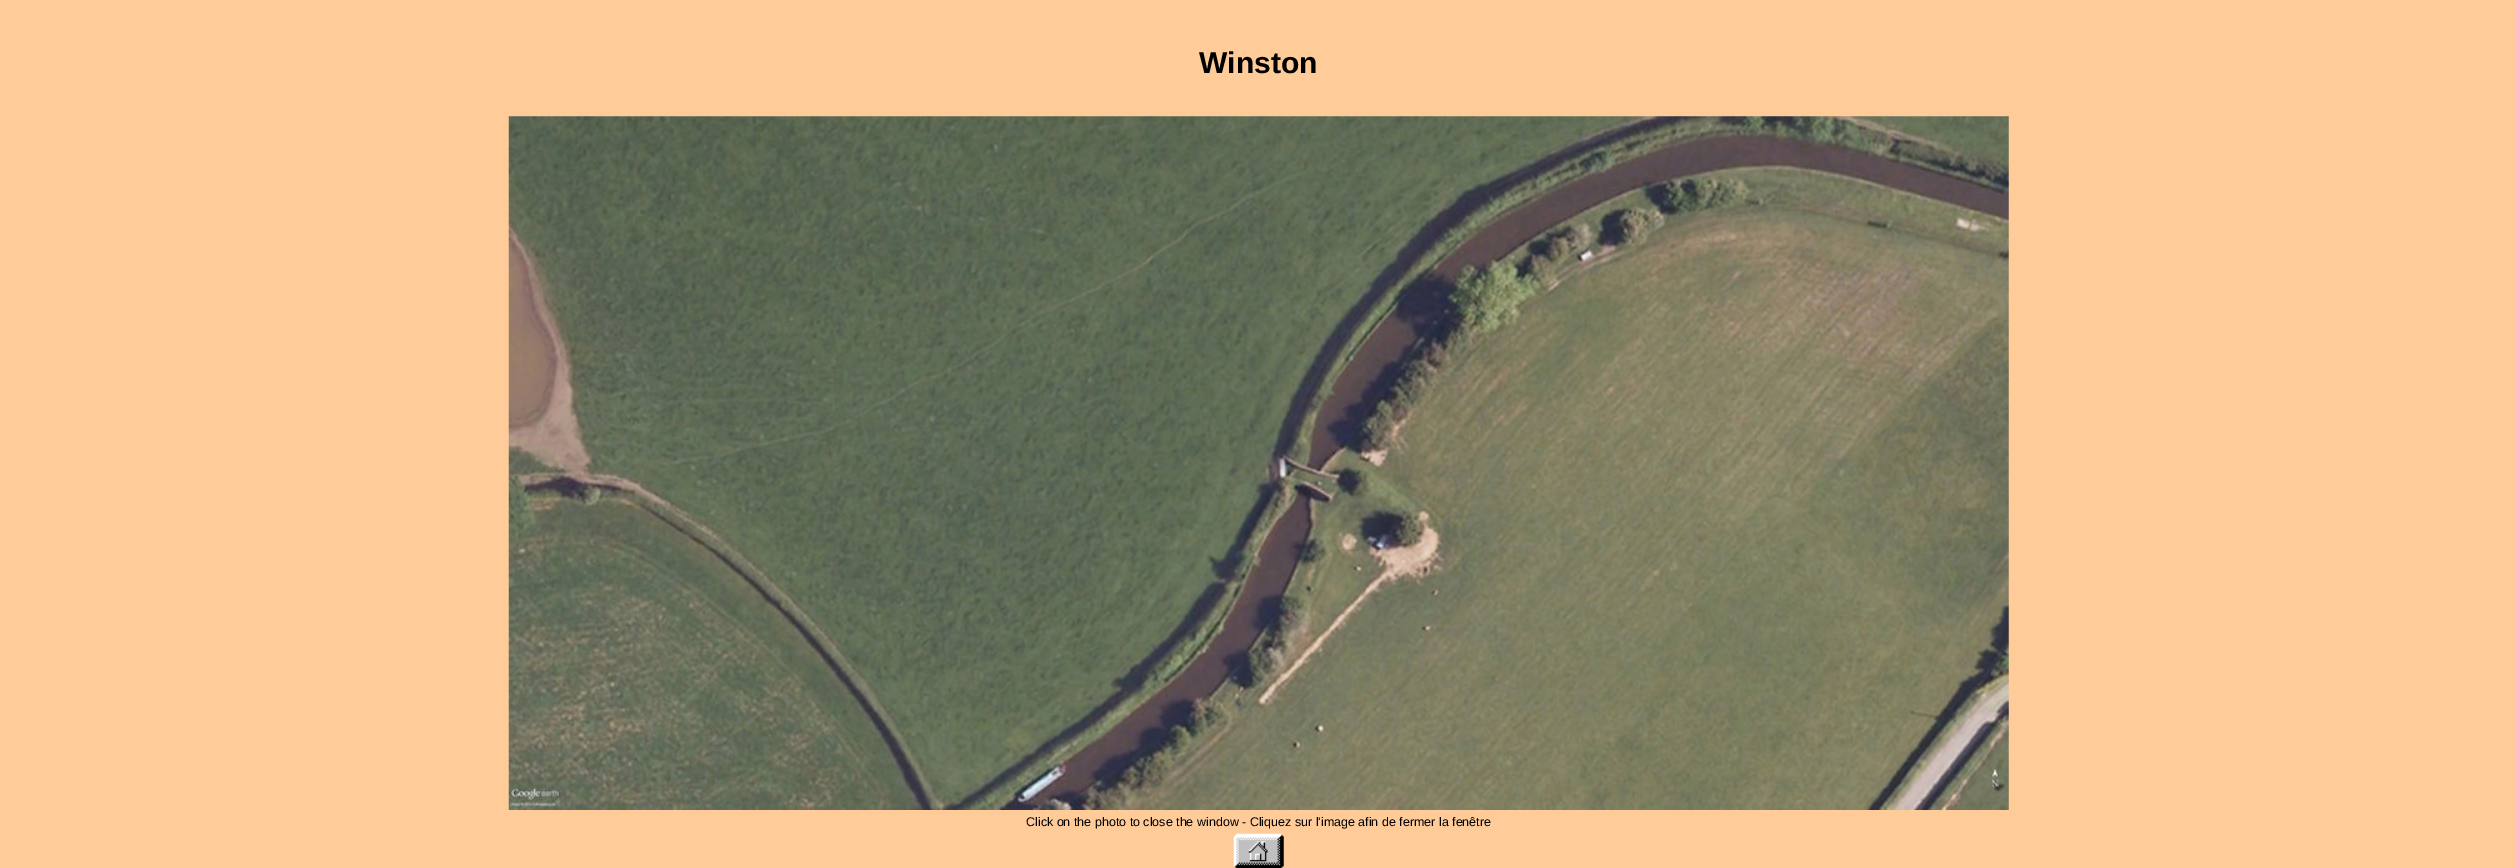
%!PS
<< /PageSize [2516 868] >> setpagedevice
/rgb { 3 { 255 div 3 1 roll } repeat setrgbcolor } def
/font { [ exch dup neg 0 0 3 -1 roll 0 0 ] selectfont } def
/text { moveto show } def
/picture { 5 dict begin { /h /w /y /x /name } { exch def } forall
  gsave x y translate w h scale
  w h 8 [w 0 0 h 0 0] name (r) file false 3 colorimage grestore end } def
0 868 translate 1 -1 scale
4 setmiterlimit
255 204 153 rgb
0 0 2516 868 rectfill
(img_01.rgb) 508 116 1501 694 picture
(img_02.rgb) 1233 833 51 35 picture
/LiberationSans-Bold 30 font
0 0 0 rgb
(Winston) 1199 73 text
/LiberationSans-Regular 12.5 font
(Click on the photo to close the window - Cliquez sur l'image afin de fermer la fenêtre) 1026 826 text
showpage
